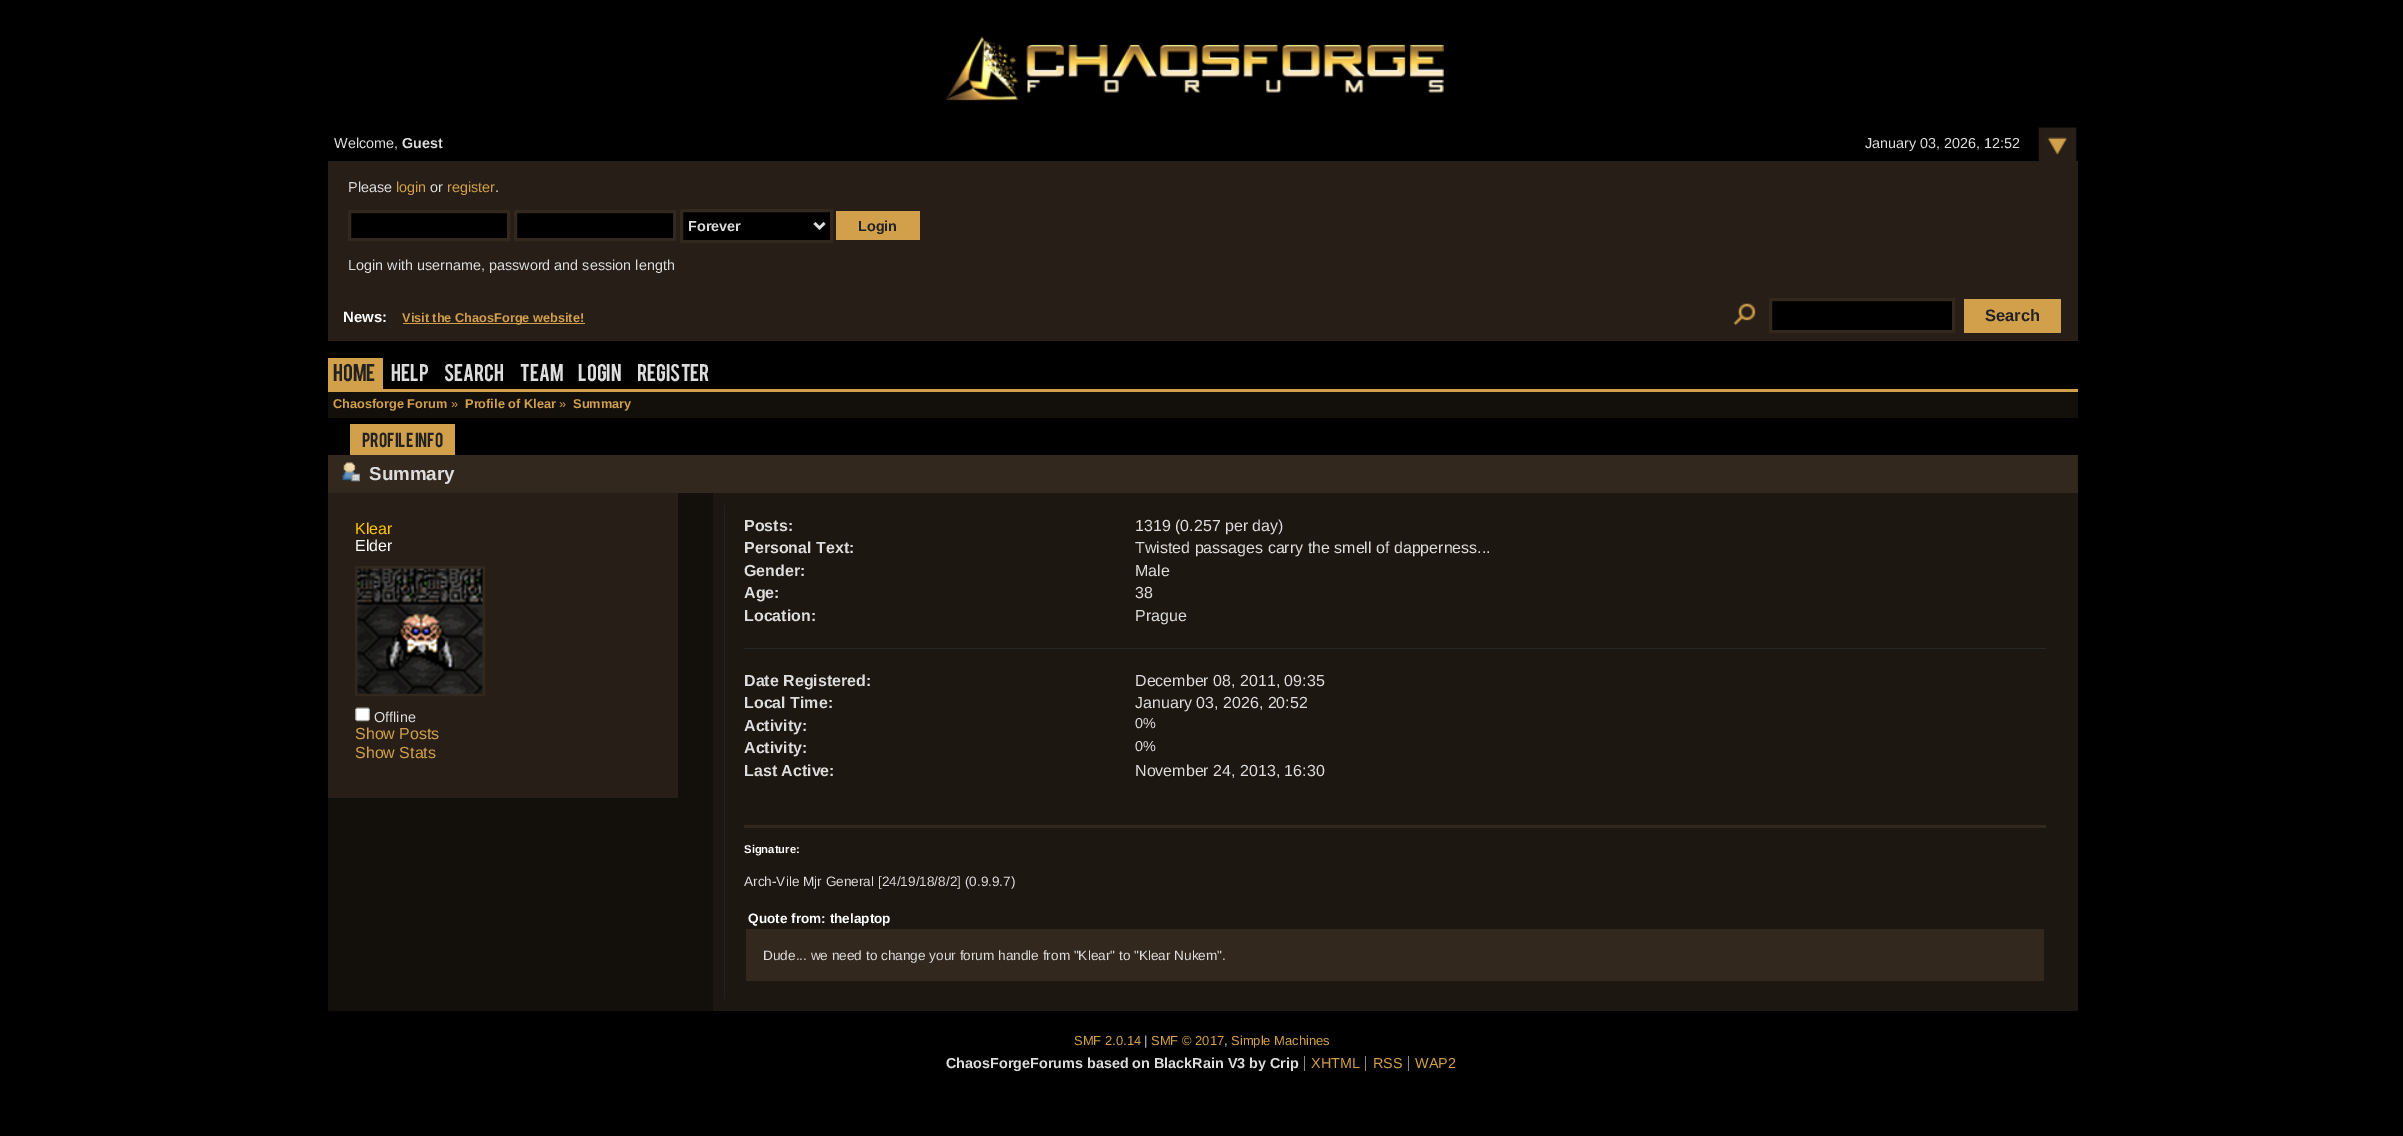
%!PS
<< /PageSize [2403 1136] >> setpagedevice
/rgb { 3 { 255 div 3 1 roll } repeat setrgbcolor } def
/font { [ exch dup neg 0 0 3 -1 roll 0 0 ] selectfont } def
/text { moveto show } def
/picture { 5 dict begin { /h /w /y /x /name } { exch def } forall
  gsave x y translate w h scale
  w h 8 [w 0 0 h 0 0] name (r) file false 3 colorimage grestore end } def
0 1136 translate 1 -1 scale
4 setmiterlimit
0 0 0 rgb
0 0 2403 1136 rectfill
(img_01.rgb) 945 36 499 65 picture
(img_02.rgb) 2038 127 39 34 picture
39 31 23 rgb
328 161 1750 180 rectfill
0 0 0 rgb
349.5 211.5 moveto 159 0 rlineto 0 28 rlineto -159 0 rlineto closepath gsave fill grestore
50 40 30 rgb
3 setlinewidth
stroke
0 0 0 rgb
515.5 211.5 moveto 159 0 rlineto 0 28 rlineto -159 0 rlineto closepath gsave fill grestore
50 40 30 rgb
stroke
0 0 0 rgb
681.5 210.5 moveto 150 0 rlineto 0 31 rlineto -150 0 rlineto closepath gsave fill grestore
50 40 30 rgb
stroke
221 221 221 rgb
2.5 setlinewidth
814.5 223 moveto 5 5 rlineto 5 -5 rlineto stroke
210 160 75 rgb
836 211 84 29 rectfill
403 323 182 1 rectfill
(img_03.rgb) 1733 303 23 23 picture
0 0 0 rgb
1770.5 299.5 moveto 183 0 rlineto 0 32 rlineto -183 0 rlineto closepath gsave fill grestore
50 40 30 rgb
3 setlinewidth
stroke
210 160 75 rgb
1964 299 97 34 rectfill
328 389 1750 3 rectfill
328 358 55 31 rectfill
19 15 11 rgb
328 392 1750 26 rectfill
210 160 75 rgb
350 424 105 31 rectfill
19 15 11 rgb
328 493 385 518 rectfill
50 40 30 rgb
328 455 1750 38 rectfill
(img_04.rgb) 342 462 18 20 picture
39 31 23 rgb
328 493 350 305 rectfill
50 40 30 rgb
356.5 567.5 127 127 rectstroke
(img_05.rgb) 357 568 126 126 picture
(img_06.rgb) 355 707 15 15 picture
29 23 17 rgb
713 493 1365 518 rectfill
34 34 34 rgb
724 505 1 494 rectfill
40 40 40 rgb
744 648 1302 1 rectfill
50 40 30 rgb
744 825 1302 3 rectfill
746 929 1298 52 rectfill
136 136 136 rgb
1304 1056 1 15 rectfill
1365 1056 1 15 rectfill
1408 1056 1 15 rectfill
/LiberationSans-Regular 14.4 font
221 221 221 rgb
(Welcome,) 334 148 text
/LiberationSans-Bold 14.4 font
(Guest) 402 148 text
/LiberationSans-Regular 14.4 font
(January 03, 2026, 12:52) 1865 148 text
(Please) 348 192 text
210 160 75 rgb
(login) 396 192 text
221 221 221 rgb
(or) 430 192 text
210 160 75 rgb
(register) 447 192 text
221 221 221 rgb
(.) 495 192 text
/LiberationSans-Bold 14.4 font
(Forever) 688 231 text
34 34 34 rgb
(Login) 858 231 text
/LiberationSans-Regular 14.4 font
221 221 221 rgb
(Login with username, password and session length) 348 270 text
/LiberationSans-Bold 15 font
255 255 255 rgb
(News:) 343 322 text
/LiberationSans-Bold 12.75 font
210 160 75 rgb
(Visit the ChaosForge website!) 402 322 text
/LiberationSans-Bold 16.5 font
34 34 34 rgb
(Search) 1985 321 text
/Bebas-Regular 19 font
(Home) 333 381 text
221 221 221 rgb
(Help) 391 381 text
(Search) 444 381 text
(Team) 520 381 text
(Login) 578 381 text
(Register) 637 381 text
/LiberationSans-Bold 12.75 font
210 160 75 rgb
(Chaosforge Forum) 333 408 text
/LiberationSans-Regular 12.75 font
(») 451 408 text
/LiberationSans-Bold 12.75 font
(Profile of Klear) 465 408 text
/LiberationSans-Regular 12.75 font
(») 559 408 text
/LiberationSans-Bold 12.75 font
(Summary) 573 408 text
/Bebas-Regular 16 font
34 34 34 rgb
(Profile Info) 362 447 text
/LiberationSans-Bold 18.75 font
221 221 221 rgb
(Summary) 369 480 text
/LiberationSans-Regular 16 font
255 198 0 rgb
(Klear) 355 534 text
255 255 255 rgb
(Elder) 355 551 text
/LiberationSans-Regular 14.4 font
221 221 221 rgb
(Offline) 374 722 text
/LiberationSans-Regular 16 font
210 160 75 rgb
(Show Posts) 355 739 text
(Show Stats) 355 758 text
/LiberationSans-Bold 16 font
221 221 221 rgb
(Posts:) 744 531 text
/LiberationSans-Regular 16 font
(1319 \(0.257 per day\)) 1135 531 text
/LiberationSans-Bold 16 font
(Personal Text:) 744 553 text
/LiberationSans-Regular 16 font
(Twisted passages carry the smell of dapperness...) 1135 553 text
/LiberationSans-Bold 16 font
(Gender:) 744 576 text
/LiberationSans-Regular 16 font
(Male) 1135 576 text
/LiberationSans-Bold 16 font
(Age:) 744 598 text
/LiberationSans-Regular 16 font
(38) 1135 598 text
/LiberationSans-Bold 16 font
(Location:) 744 621 text
/LiberationSans-Regular 16 font
(Prague) 1135 621 text
/LiberationSans-Bold 16 font
(Date Registered:) 744 686 text
/LiberationSans-Regular 16 font
(December 08, 2011, 09:35) 1135 686 text
/LiberationSans-Bold 16 font
(Local Time:) 744 708 text
/LiberationSans-Regular 16 font
(January 03, 2026, 20:52) 1135 708 text
/LiberationSans-Bold 16 font
(Activity:) 744 731 text
/LiberationSans-Regular 14.4 font
(0%) 1135 728 text
/LiberationSans-Bold 16 font
(Activity:) 744 753 text
/LiberationSans-Regular 14.4 font
(0%) 1135 751 text
/LiberationSans-Bold 16 font
(Last Active:) 744 776 text
/LiberationSans-Regular 16 font
(November 24, 2013, 16:30) 1135 776 text
/LiberationSans-Bold 11.25 font
255 255 255 rgb
(Signature:) 744 853 text
/LiberationSans-Regular 13.6 font
221 221 221 rgb
(Arch-Vile Mjr General [24/19/18/8/2] \(0.9.9.7\)) 744 886 text
/LiberationSans-Bold 13.6 font
255 255 255 rgb
(Quote from: thelaptop) 748 923 text
/LiberationSans-Regular 13.6 font
221 221 221 rgb
(Dude... we need to change your forum handle from "Klear" to "Klear Nukem".) 763 960 text
/LiberationSans-Regular 13 font
210 160 75 rgb
(SMF 2.0.14) 1074 1045 text
221 221 221 rgb
(|) 1144 1045 text
210 160 75 rgb
(SMF © 2017) 1151 1045 text
221 221 221 rgb
(,) 1224 1045 text
210 160 75 rgb
(Simple Machines) 1231 1045 text
/LiberationSans-Bold 14.4 font
221 221 221 rgb
(ChaosForgeForums based on BlackRain V3 by Crip) 946 1068 text
/LiberationSans-Regular 14.4 font
210 160 75 rgb
(XHTML) 1311 1068 text
(RSS) 1373 1068 text
(WAP2) 1415 1068 text
showpage
